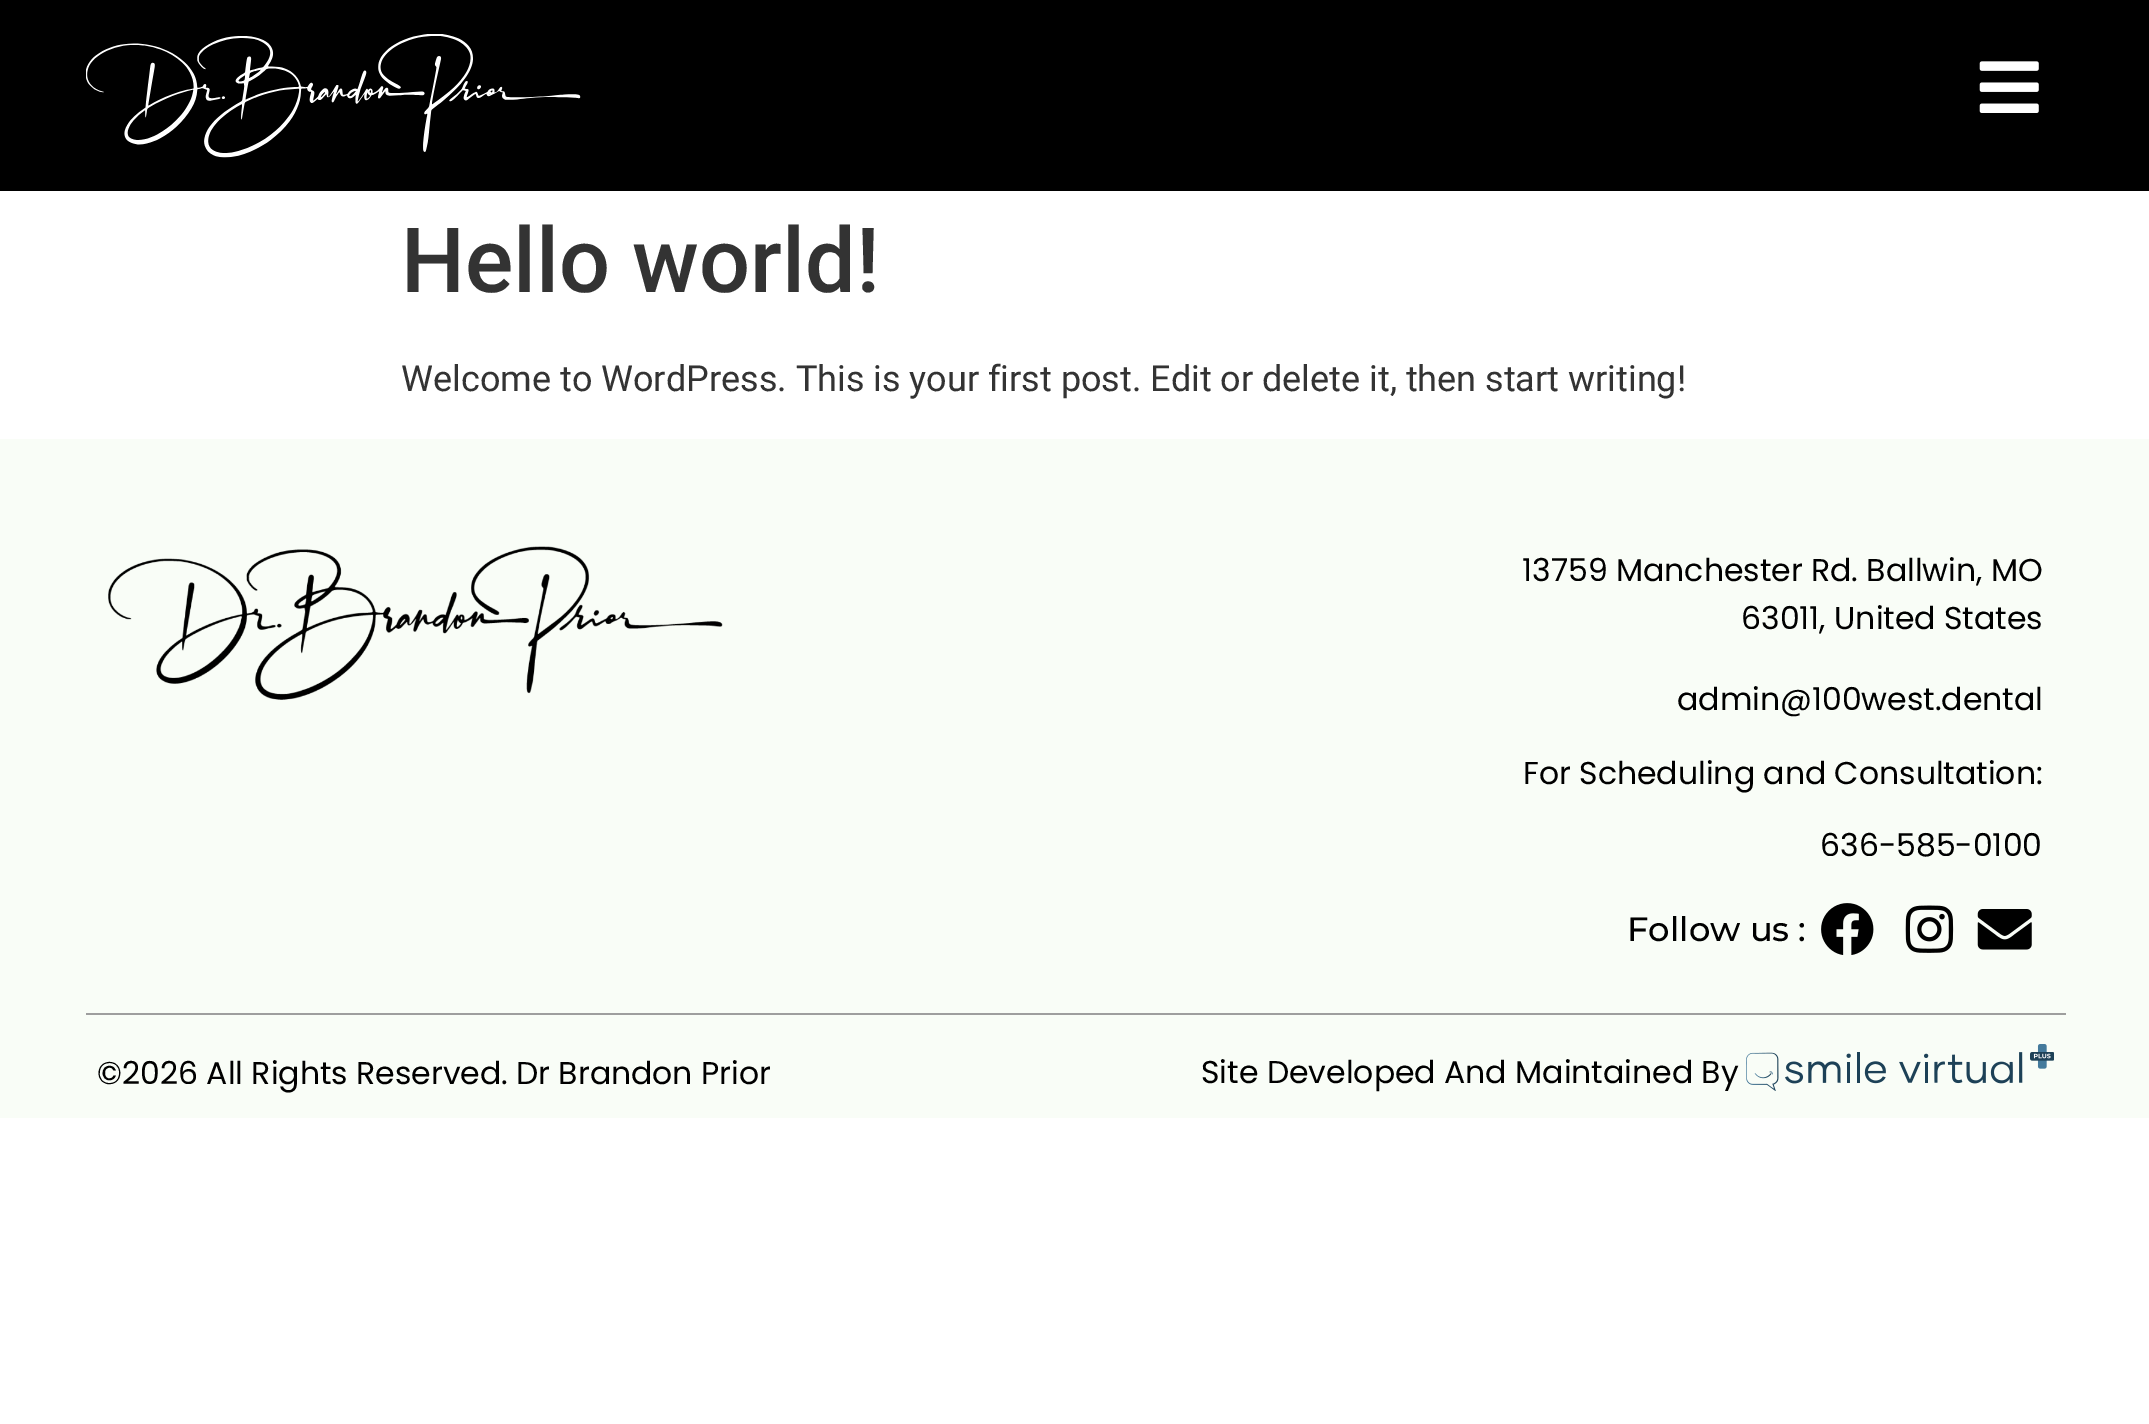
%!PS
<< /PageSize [2149 1424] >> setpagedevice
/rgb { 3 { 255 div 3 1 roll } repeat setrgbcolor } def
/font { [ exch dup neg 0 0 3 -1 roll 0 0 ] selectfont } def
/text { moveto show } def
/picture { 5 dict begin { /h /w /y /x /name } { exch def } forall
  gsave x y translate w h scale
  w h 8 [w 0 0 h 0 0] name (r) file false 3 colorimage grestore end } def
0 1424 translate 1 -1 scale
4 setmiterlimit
255 255 255 rgb
0 0 2149 1424 rectfill
0 0 0 rgb
0 0 2149 191 rectfill
(img_01.rgb) 86 34 495 124 picture
(img_02.rgb) 1979 61 60 52 picture
249 253 247 rgb
0 439 2149 679 rectfill
(img_03.rgb) 108 546 615 154 picture
(img_04.rgb) 1821 903 53 52 picture
(img_05.rgb) 1905 905 49 48 picture
(img_06.rgb) 1977 909 55 41 picture
158 158 158 rgb
86 1013 1980 2 rectfill
(img_07.rgb) 1746 1044 308 47 picture
/Roboto-Medium 90 font
51 51 51 rgb
(Hello world!) 401 292 text
/Roboto-Regular 36 font
(Welcome to WordPress. This is your first post. Edit or delete it, then start writing!) 401 391 text
/Poppins-Regular 31.5 font
0 0 0 rgb
(13759 Manchester Rd. Ballwin, MO) 1522 581 text
(63011, United States) 1741 629 text
(admin@100west.dental) 1677 710 text
(For Scheduling and Consultation:) 1523 784 text
(636-585-0100) 1820 856 text
/Montserrat-Medium 33.75 font
(Follow us :) 1627 941 text
/Poppins-Regular 31.5 font
(©2026 All Rights Reserved. Dr Brandon Prior) 97 1084 text
(Site Developed And Maintained By) 1201 1083 text
showpage
